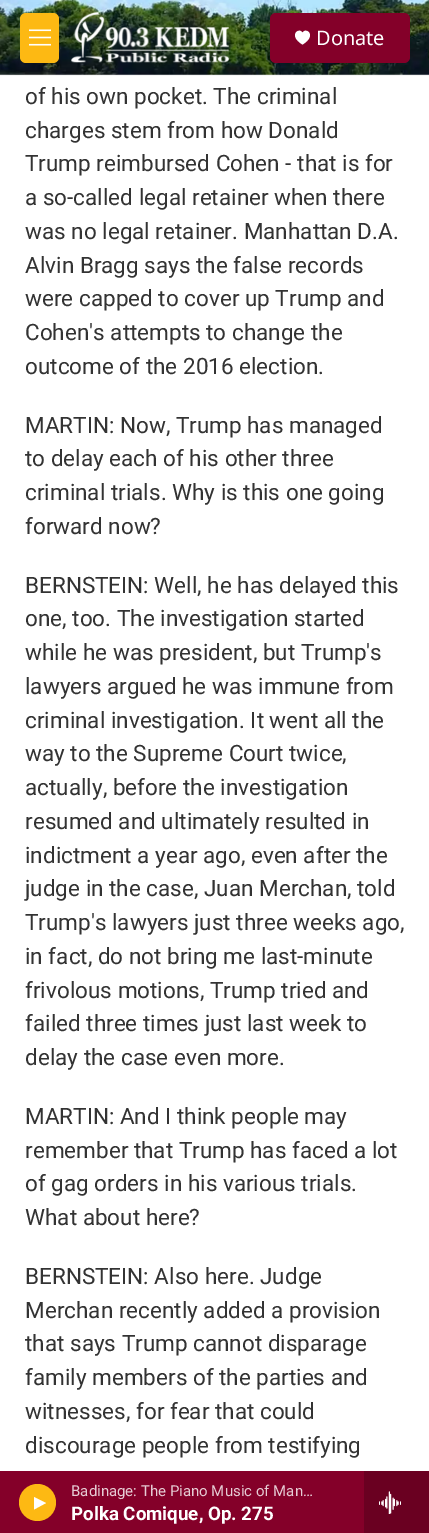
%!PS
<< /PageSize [429 1533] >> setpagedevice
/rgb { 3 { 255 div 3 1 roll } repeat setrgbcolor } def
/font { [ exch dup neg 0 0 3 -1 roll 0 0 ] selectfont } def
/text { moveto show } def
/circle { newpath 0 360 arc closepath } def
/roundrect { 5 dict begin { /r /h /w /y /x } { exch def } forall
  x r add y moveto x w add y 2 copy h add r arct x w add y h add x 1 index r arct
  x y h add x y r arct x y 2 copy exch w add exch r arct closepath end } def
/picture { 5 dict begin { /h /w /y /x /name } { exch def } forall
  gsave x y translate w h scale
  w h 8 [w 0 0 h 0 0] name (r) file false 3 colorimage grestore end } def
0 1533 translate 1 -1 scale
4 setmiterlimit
255 255 255 rgb
0 0 429 1533 rectfill
245 245 245 rgb
0 75 429 1 rectfill
(img_01.rgb) 0 0 429 75 picture
253 185 19 rgb
20 13 39 50 6 roundrect fill
(img_02.rgb) 29 29 22 17 picture
(img_03.rgb) 71 12 158 51 picture
132 0 41 rgb
270 13 140 50 6 roundrect fill
255 255 255 rgb
302.5 33 moveto -2.5 -6.5 -15.5 2 0 11.5 rcurveto 15.5 -9.5 2.5 -18 0 -11.5 rcurveto closepath fill
132 0 41 rgb
0 1471 364 62 rectfill
253 185 19 rgb
37.5 1502.5 18.5 circle fill
255 255 255 rgb
34 1497 moveto 12 6 rlineto -12 6.5 rlineto closepath fill
106 0 33 rgb
364 1471 65 62 rectfill
(img_04.rgb) 379 1491 22 23 picture
/NotoSans-Regular 20 font
255 255 255 rgb
(Donate) 316 45 text
/Roboto-Regular 15 font
230 204 212 rgb
(Badinage: The Piano Music of Man…) 71 1496 text
/Roboto-Bold 18.75 font
255 255 255 rgb
(Polka Comique, Op. 275) 71 1520 text
/Roboto-Regular 22.5 font
51 51 51 rgb
(of his own pocket. The criminal) 25 104 text
(charges stem from how Donald) 25 138 text
(Trump reimbursed Cohen - that is for) 25 171 text
(a so-called legal retainer when there) 25 205 text
(was no legal retainer. Manhattan D.A.) 25 239 text
(Alvin Bragg says the false records) 25 273 text
(were capped to cover up Trump and) 25 306 text
(Cohen's attempts to change the) 25 340 text
(outcome of the 2016 election.) 25 374 text
(MARTIN: Now, Trump has managed) 25 433 text
(to delay each of his other three) 25 466 text
(criminal trials. Why is this one going) 25 500 text
(forward now?) 25 534 text
(BERNSTEIN: Well, he has delayed this) 25 593 text
(one, too. The investigation started) 25 626 text
(while he was president, but Trump's) 25 660 text
(lawyers argued he was immune from) 25 694 text
(criminal investigation. It went all the) 25 728 text
(way to the Supreme Court twice,) 25 761 text
(actually, before the investigation) 25 795 text
(resumed and ultimately resulted in) 25 829 text
(indictment a year ago, even after the) 25 863 text
(judge in the case, Juan Merchan, told) 25 896 text
(Trump's lawyers just three weeks ago,) 25 930 text
(in fact, do not bring me last-minute) 25 964 text
(frivolous motions, Trump tried and) 25 998 text
(failed three times just last week to) 25 1031 text
(delay the case even more.) 25 1065 text
(MARTIN: And I think people may) 25 1124 text
(remember that Trump has faced a lot) 25 1158 text
(of gag orders in his various trials.) 25 1191 text
(What about here?) 25 1225 text
(BERNSTEIN: Also here. Judge) 25 1284 text
(Merchan recently added a provision) 25 1318 text
(that says Trump cannot disparage) 25 1351 text
(family members of the parties and) 25 1385 text
(witnesses, for fear that could) 25 1419 text
(discourage people from testifying) 25 1453 text
showpage
